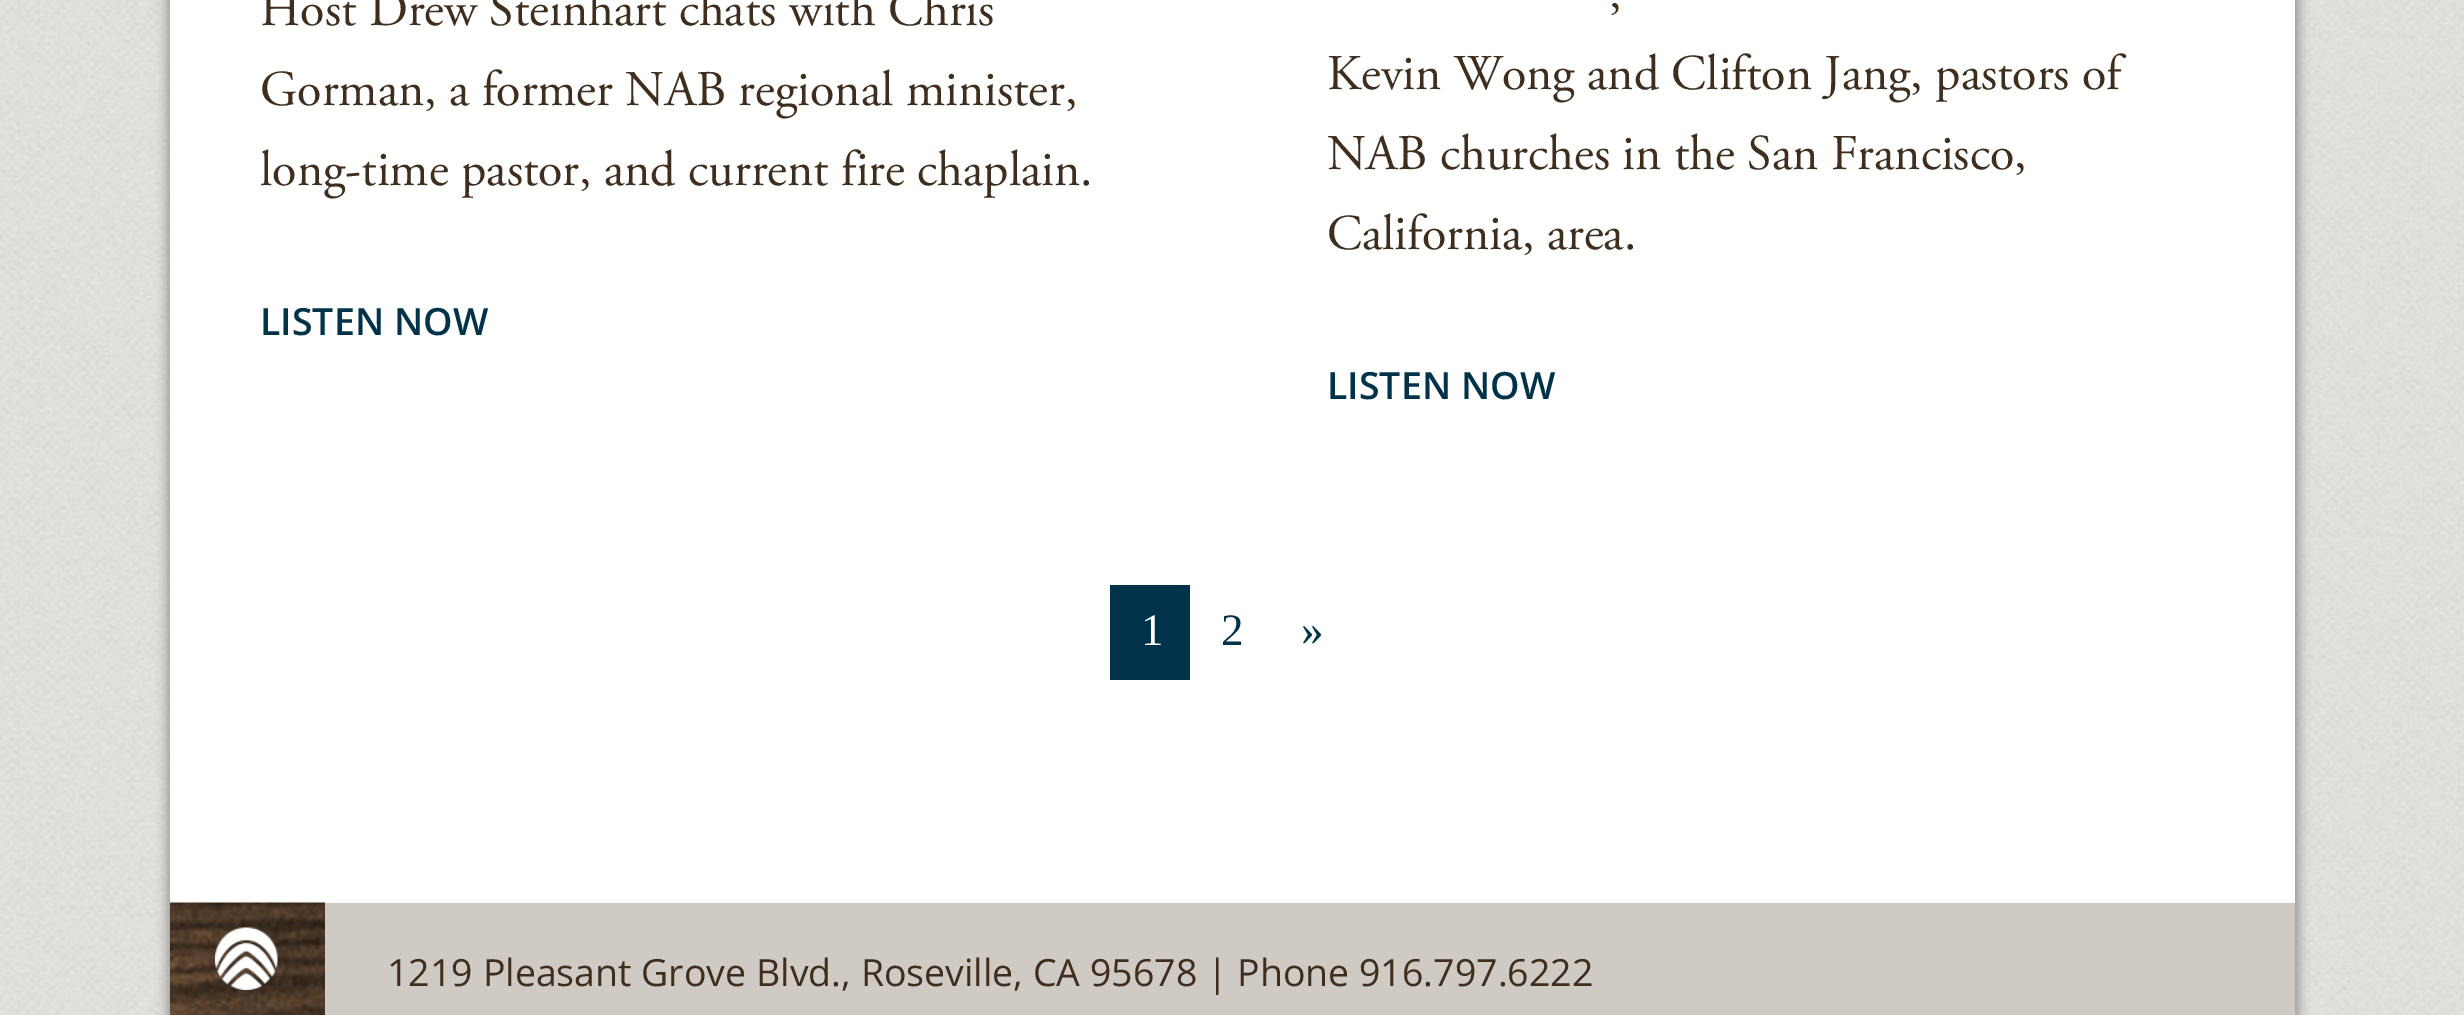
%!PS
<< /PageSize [2464 1015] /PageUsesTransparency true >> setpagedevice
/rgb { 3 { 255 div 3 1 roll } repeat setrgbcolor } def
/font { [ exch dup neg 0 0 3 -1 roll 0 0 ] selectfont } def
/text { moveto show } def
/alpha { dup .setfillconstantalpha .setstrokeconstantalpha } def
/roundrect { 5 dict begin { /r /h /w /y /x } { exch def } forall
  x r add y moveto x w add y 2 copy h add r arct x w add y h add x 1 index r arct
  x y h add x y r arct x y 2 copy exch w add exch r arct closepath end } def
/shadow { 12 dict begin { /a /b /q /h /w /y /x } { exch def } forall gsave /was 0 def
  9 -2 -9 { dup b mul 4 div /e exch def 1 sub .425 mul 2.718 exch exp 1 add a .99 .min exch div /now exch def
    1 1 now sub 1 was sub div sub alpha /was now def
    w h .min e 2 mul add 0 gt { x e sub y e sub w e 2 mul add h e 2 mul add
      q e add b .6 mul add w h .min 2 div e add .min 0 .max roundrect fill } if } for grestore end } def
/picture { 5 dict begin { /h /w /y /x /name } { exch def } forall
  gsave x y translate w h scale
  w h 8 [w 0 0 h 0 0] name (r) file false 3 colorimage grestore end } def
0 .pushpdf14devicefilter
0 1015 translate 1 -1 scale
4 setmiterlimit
255 255 255 rgb
0 0 2464 1015 rectfill
(img_01.rgb) 0 0 2464 1015 picture
153 153 153 rgb
173 -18 2125 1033 0 6 1 shadow
168 -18 2125 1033 0 6 1 shadow
255 255 255 rgb
170 0 2125 903 rectfill
0 51 73 rgb
1110 585 80 95 rectfill
207 202 196 rgb
325 903 1970 112 rectfill
(img_02.rgb) 170 902 155 113 picture
(img_03.rgb) 215 927 63 63 picture
/AdobeGaramond-Regular 50 font
63 46 30 rgb
(Host Drew Steinhart chats with Chris) 260 25 text
(Gorman, a former NAB regional minister,) 260 105 text
(long-time pastor, and current fire chaplain.) 260 185 text
/OpenSans-SemiBold 37.5 font
0 51 73 rgb
(LISTEN NOW) 260 335 text
/AdobeGaramond-Regular 50 font
63 46 30 rgb
(,) 1609 9 text
(Kevin Wong and Clifton Jang, pastors of) 1327 89 text
(NAB churches in the San Francisco,) 1327 169 text
(California, area.) 1327 249 text
/OpenSans-SemiBold 37.5 font
0 51 73 rgb
(LISTEN NOW) 1327 399 text
/LiberationSerif-Regular 45 font
255 255 255 rgb
(1) 1141 645 text
0 51 73 rgb
(2) 1221 645 text
(») 1301 645 text
/OpenSans-Regular 37.5 font
63 46 30 rgb
(1219 Pleasant Grove Blvd., Roseville, CA 95678 | Phone 916.797.6222) 387 986 text
.poppdf14devicefilter showpage
